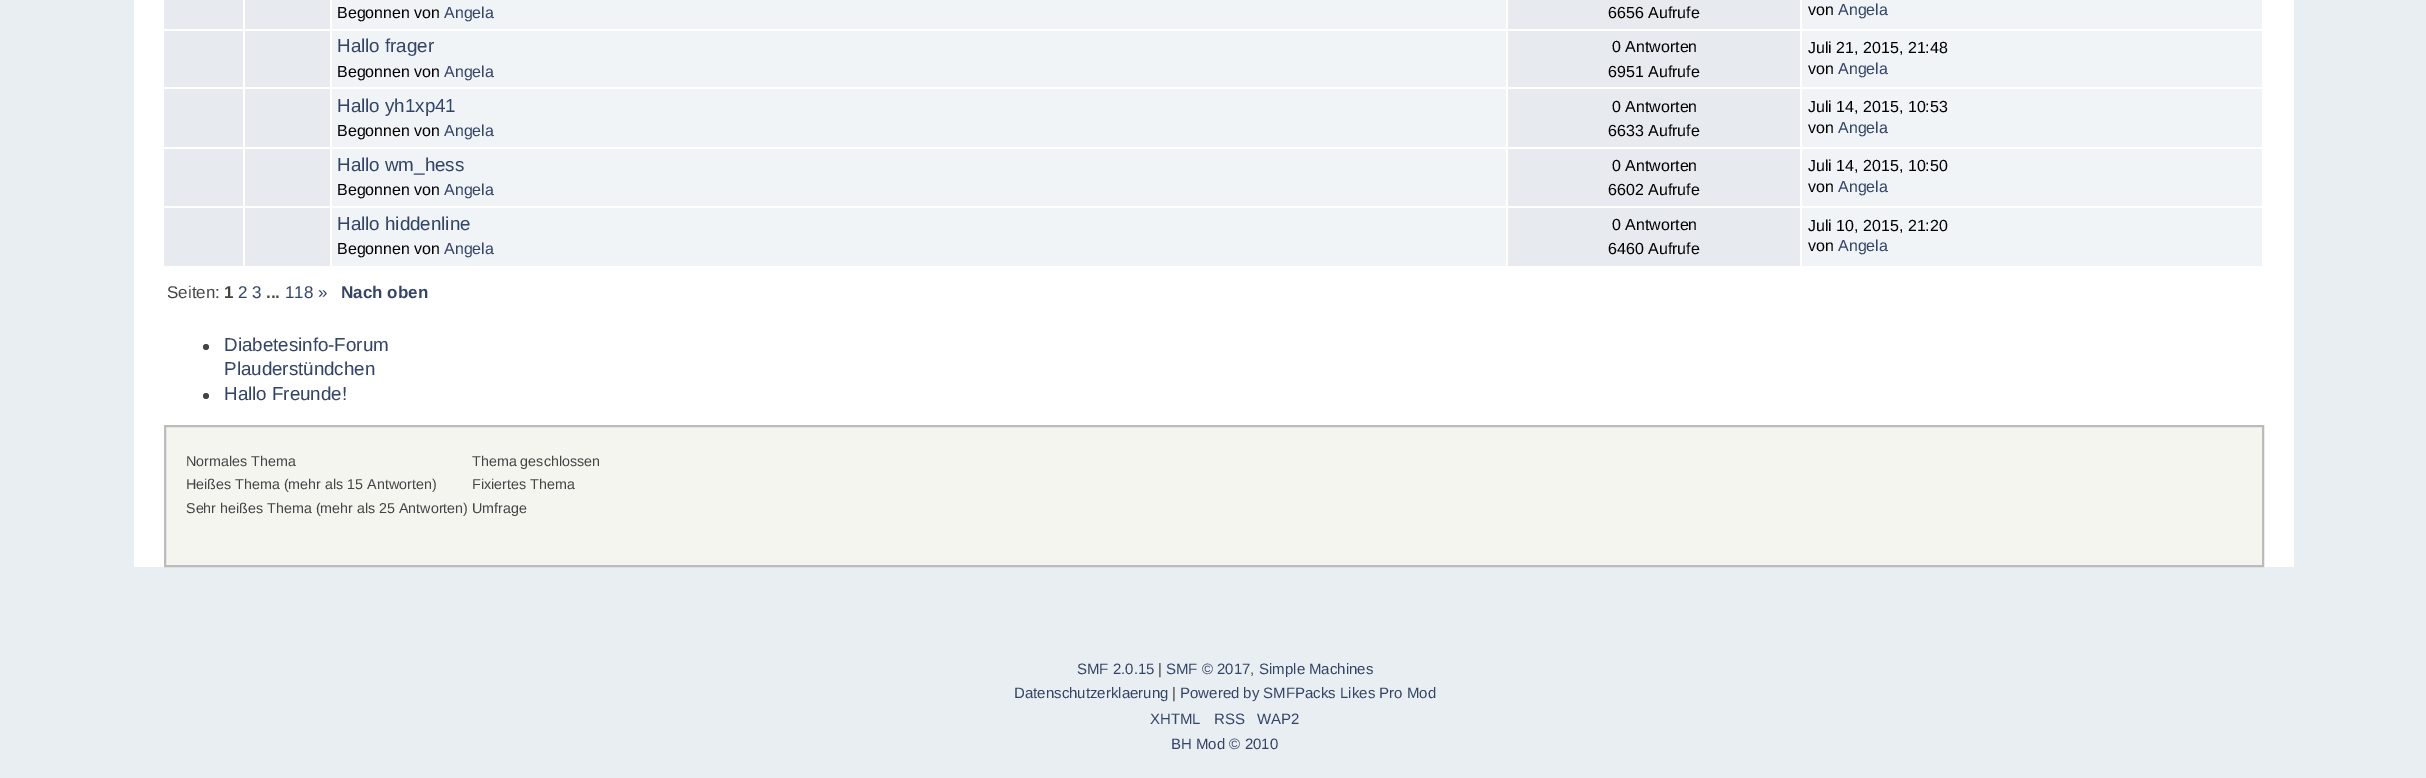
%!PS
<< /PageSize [2426 778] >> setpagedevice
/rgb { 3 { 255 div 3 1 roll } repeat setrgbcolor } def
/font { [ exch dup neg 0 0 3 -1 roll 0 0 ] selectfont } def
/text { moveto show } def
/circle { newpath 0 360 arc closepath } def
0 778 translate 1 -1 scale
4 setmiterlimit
233 238 242 rgb
0 0 2426 778 rectfill
255 255 255 rgb
134 0 2160 567 rectfill
231 234 239 rgb
164 0 79 29 rectfill
245 0 85 29 rectfill
240 244 247 rgb
332 0 1174 29 rectfill
231 234 239 rgb
1508 0 292 29 rectfill
240 244 247 rgb
1802 0 460 29 rectfill
231 234 239 rgb
164 31 79 56 rectfill
245 31 85 56 rectfill
240 244 247 rgb
332 31 1174 56 rectfill
231 234 239 rgb
1508 31 292 56 rectfill
240 244 247 rgb
1802 31 460 56 rectfill
231 234 239 rgb
164 89 79 58 rectfill
245 89 85 58 rectfill
240 244 247 rgb
332 89 1174 58 rectfill
231 234 239 rgb
1508 89 292 58 rectfill
240 244 247 rgb
1802 89 460 58 rectfill
231 234 239 rgb
164 149 79 57 rectfill
245 149 85 57 rectfill
240 244 247 rgb
332 149 1174 57 rectfill
231 234 239 rgb
1508 149 292 57 rectfill
240 244 247 rgb
1802 149 460 57 rectfill
231 234 239 rgb
164 208 79 58 rectfill
245 208 85 58 rectfill
240 244 247 rgb
332 208 1174 58 rectfill
231 234 239 rgb
1508 208 292 58 rectfill
240 244 247 rgb
1802 208 460 58 rectfill
68 68 68 rgb
206 347 3 circle fill
206 396 3 circle fill
245 245 240 rgb
165 426 moveto 2098 0 rlineto 0 140 rlineto -2098 0 rlineto closepath gsave fill grestore
187 187 187 rgb
2 setlinewidth
stroke
/LiberationSans-Regular 16 font
0 0 0 rgb
(Begonnen von) 337 18 text
51 68 102 rgb
(Angela) 444 18 text
0 0 0 rgb
(6656 Aufrufe) 1608 18 text
(von) 1808 15 text
51 68 102 rgb
(Angela) 1838 15 text
/LiberationSans-Regular 18.75 font
(Hallo frager) 337 52 text
/LiberationSans-Regular 16 font
0 0 0 rgb
(Begonnen von) 337 77 text
51 68 102 rgb
(Angela) 444 77 text
0 0 0 rgb
(0 Antworten) 1612 52 text
(6951 Aufrufe) 1608 77 text
(Juli 21, 2015, 21:48) 1808 53 text
(von) 1808 74 text
51 68 102 rgb
(Angela) 1838 74 text
/LiberationSans-Regular 18.75 font
(Hallo yh1xp41) 337 112 text
/LiberationSans-Regular 16 font
0 0 0 rgb
(Begonnen von) 337 136 text
51 68 102 rgb
(Angela) 444 136 text
0 0 0 rgb
(0 Antworten) 1612 112 text
(6633 Aufrufe) 1608 136 text
(Juli 14, 2015, 10:53) 1808 112 text
(von) 1808 133 text
51 68 102 rgb
(Angela) 1838 133 text
/LiberationSans-Regular 18.75 font
(Hallo wm_hess) 337 171 text
/LiberationSans-Regular 16 font
0 0 0 rgb
(Begonnen von) 337 195 text
51 68 102 rgb
(Angela) 444 195 text
0 0 0 rgb
(0 Antworten) 1612 171 text
(6602 Aufrufe) 1608 195 text
(Juli 14, 2015, 10:50) 1808 171 text
(von) 1808 192 text
51 68 102 rgb
(Angela) 1838 192 text
/LiberationSans-Regular 18.75 font
(Hallo hiddenline) 337 230 text
/LiberationSans-Regular 16 font
0 0 0 rgb
(Begonnen von) 337 254 text
51 68 102 rgb
(Angela) 444 254 text
0 0 0 rgb
(0 Antworten) 1612 230 text
(6460 Aufrufe) 1608 254 text
(Juli 10, 2015, 21:20) 1808 231 text
(von) 1808 251 text
51 68 102 rgb
(Angela) 1838 251 text
/LiberationSans-Regular 17 font
68 68 68 rgb
(Seiten:) 167 298 text
/LiberationSans-Bold 17 font
(1) 224 298 text
/LiberationSans-Regular 17 font
51 68 102 rgb
(2 3) 238 298 text
/LiberationSans-Bold 17 font
68 68 68 rgb
(...) 266 298 text
/LiberationSans-Regular 17 font
51 68 102 rgb
(118 ») 285 298 text
/LiberationSans-Bold 17 font
(Nach oben) 341 298 text
/LiberationSans-Regular 18.75 font
(Diabetesinfo-Forum) 224 351 text
(Plauderstündchen) 224 375 text
(Hallo Freunde!) 224 400 text
/LiberationSans-Regular 14.3 font
68 68 68 rgb
(Normales Thema) 186 466 text
(Heißes Thema \(mehr als 15 Antworten\)) 186 489 text
(Sehr heißes Thema \(mehr als 25 Antworten\) Umfrage) 186 513 text
(Thema geschlossen) 472 466 text
(Fixiertes Thema) 472 489 text
/LiberationSans-Regular 15 font
51 68 102 rgb
(SMF 2.0.15) 1077 674 text
68 68 68 rgb
(|) 1158 674 text
51 68 102 rgb
(SMF © 2017) 1166 674 text
68 68 68 rgb
(,) 1250 674 text
51 68 102 rgb
(Simple Machines) 1259 674 text
(Datenschutzerklaerung) 1014 698 text
68 68 68 rgb
(|) 1172 698 text
51 68 102 rgb
(Powered by SMFPacks Likes Pro Mod) 1180 698 text
(XHTML) 1150 724 text
(RSS) 1214 724 text
(WAP2) 1257 724 text
(BH Mod © 2010) 1171 749 text
showpage
